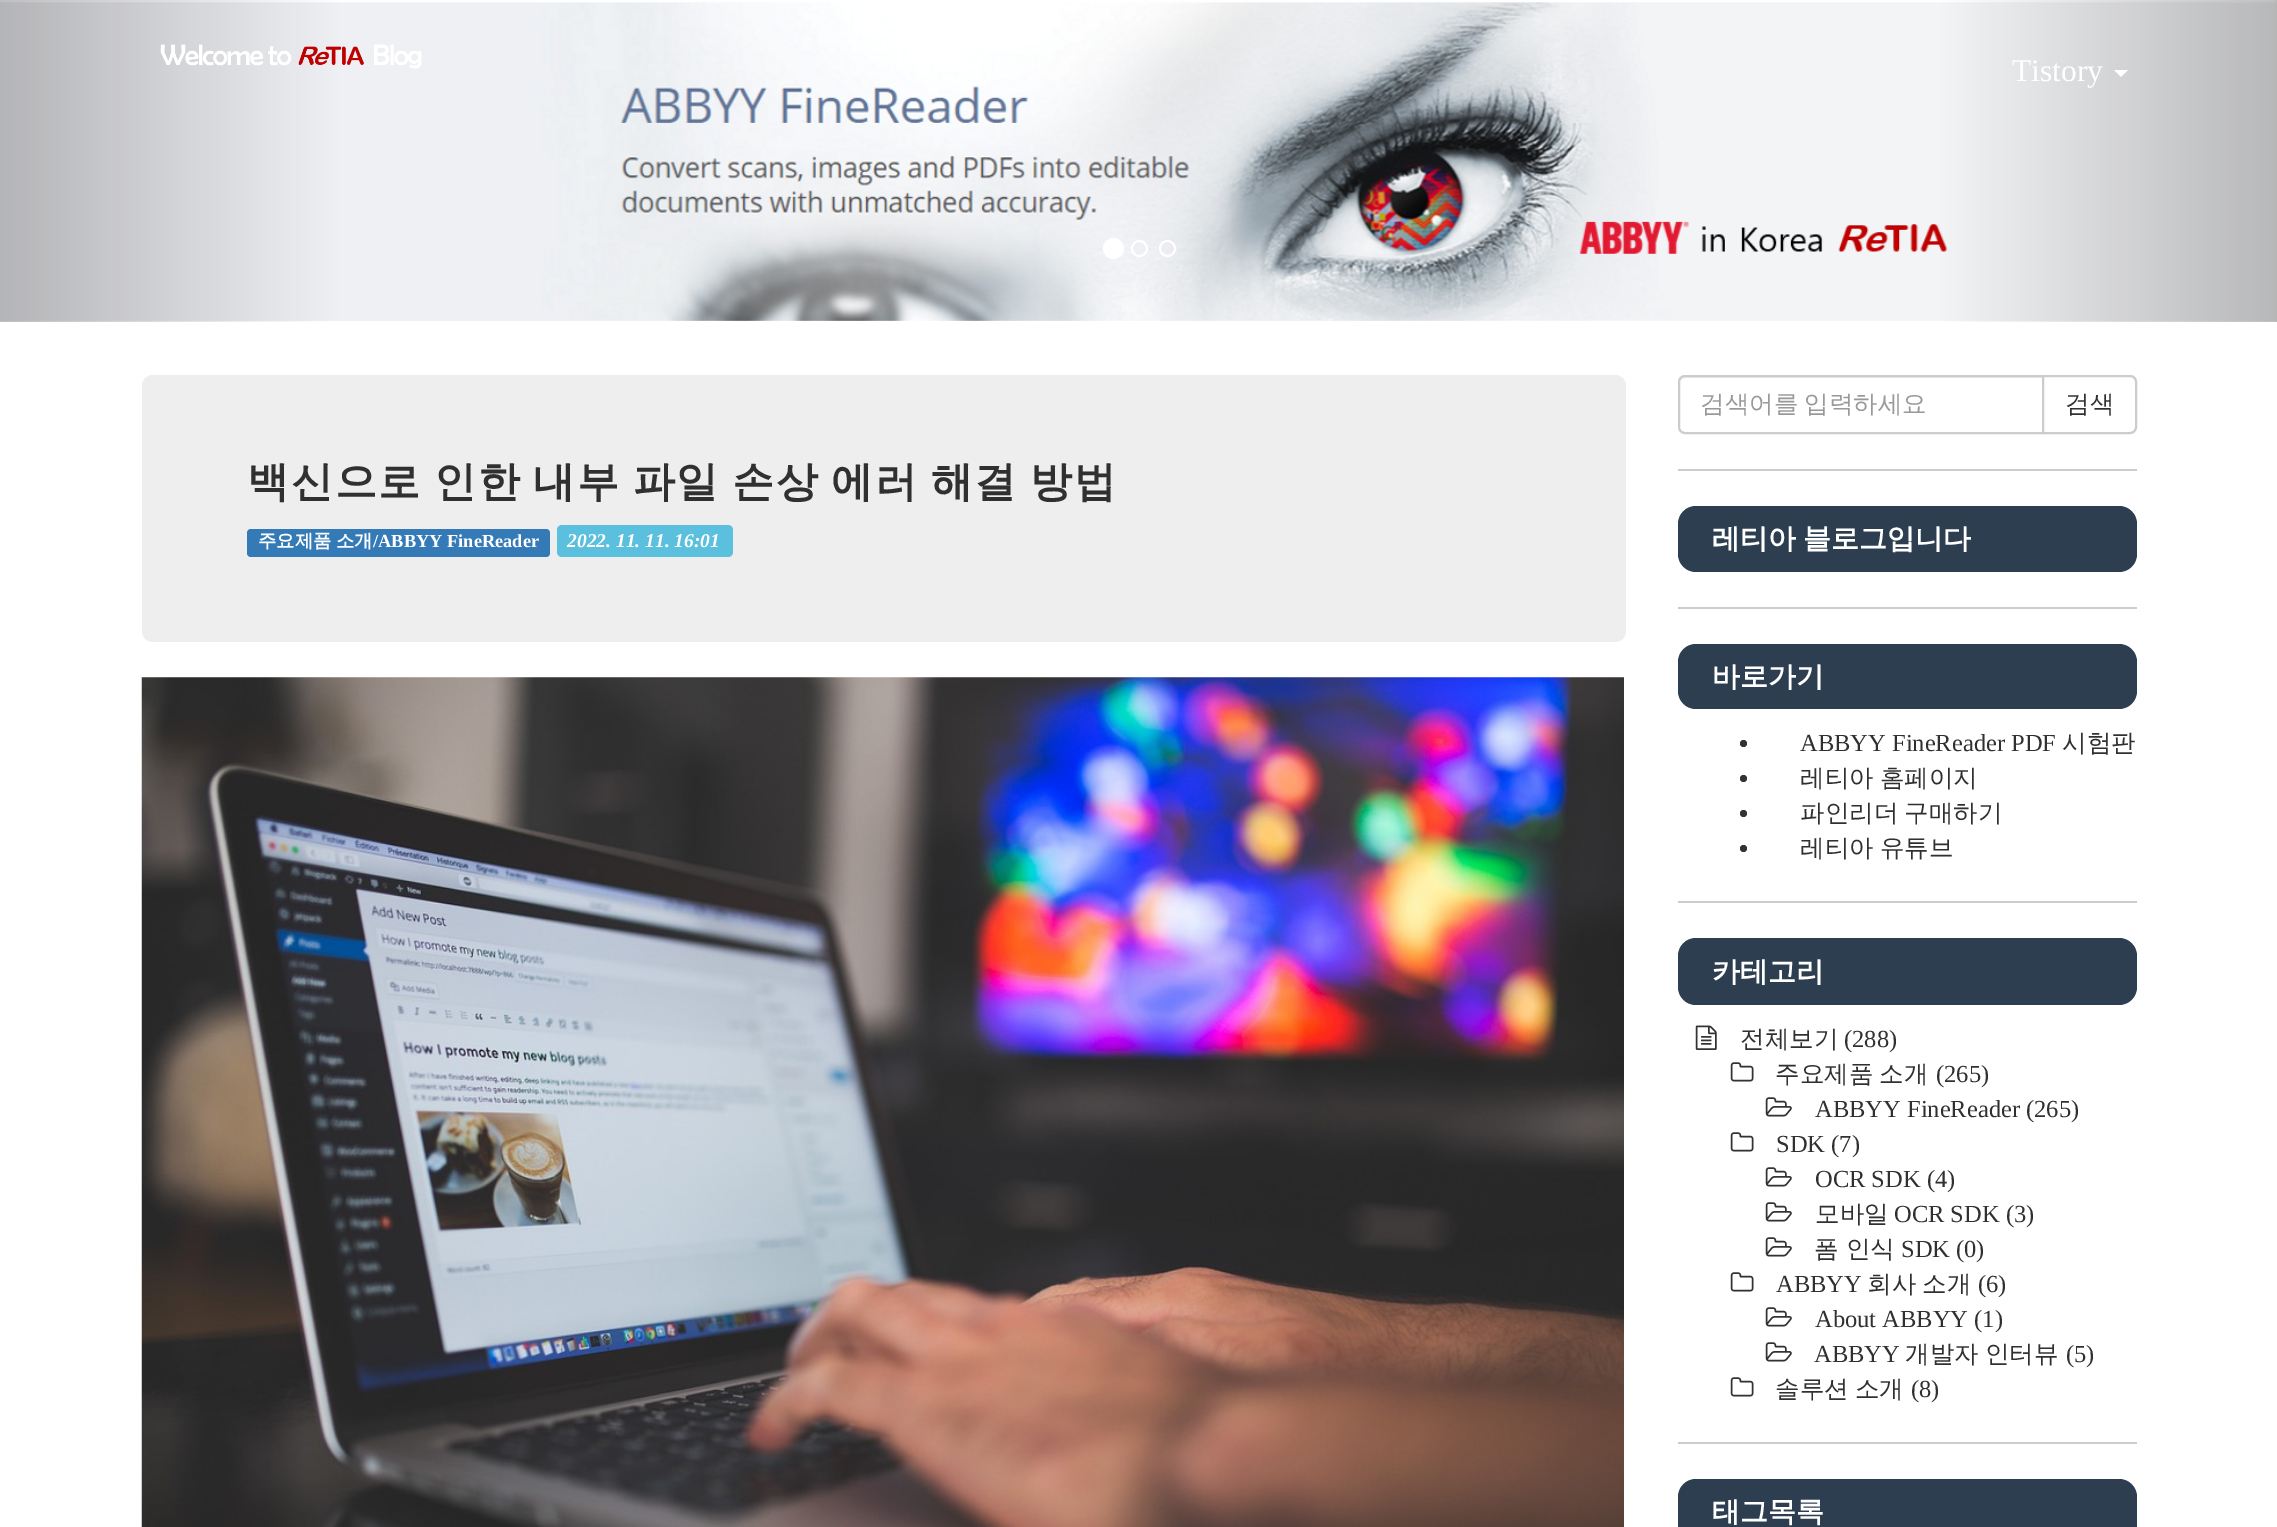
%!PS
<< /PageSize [2277 1527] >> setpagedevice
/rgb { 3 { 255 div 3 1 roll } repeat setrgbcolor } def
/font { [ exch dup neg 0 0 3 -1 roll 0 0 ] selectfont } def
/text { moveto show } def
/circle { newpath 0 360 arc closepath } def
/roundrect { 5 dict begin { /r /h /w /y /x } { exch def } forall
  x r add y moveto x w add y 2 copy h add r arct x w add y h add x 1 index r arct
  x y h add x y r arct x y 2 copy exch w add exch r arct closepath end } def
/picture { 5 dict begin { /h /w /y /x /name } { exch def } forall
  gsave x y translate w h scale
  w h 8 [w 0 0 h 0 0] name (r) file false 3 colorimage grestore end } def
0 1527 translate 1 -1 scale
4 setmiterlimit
255 255 255 rgb
0 0 2277 1527 rectfill
(img_01.rgb) 0 0 2277 322 picture
1113.5 248.5 9.5 circle gsave fill grestore
2 setlinewidth
stroke
1139.5 248.5 7.5 circle stroke
1167.5 248.5 7.5 circle stroke
(img_02.rgb) 160 44 262 25 picture
2114 70 moveto 14 0 rlineto -7 7 rlineto closepath fill
238 238 238 rgb
142 375 1484 267 11 roundrect fill
51 122 183 rgb
247 529 303 28 4 roundrect fill
91 192 222 rgb
557 525 176 32 5 roundrect fill
(img_03.rgb) 141 677 1483 850 picture
204 204 204 rgb
1678 469 459 2 rectfill
236 236 236 rgb
1685 378 moveto 357 0 rlineto 0 -2 rlineto -357 0 rlineto -4 0 -5 4 -5 7 rcurveto 0 -3 2 -5 5 -5 rcurveto closepath fill
204 204 204 rgb
1685 376 moveto 358 0 rlineto 0 57 rlineto -358 0 rlineto -3.5 0 -6 -2.5 -6 -6 rcurveto 0 -45 rlineto 0 -3.5 2.5 -6 6 -6 rcurveto closepath stroke
255 255 255 rgb
2043 376 moveto 87 0 rlineto 3.5 0 6 2.5 6 6 rcurveto 0 45 rlineto 0 3.5 -2.5 6 -6 6 rcurveto -87 0 rlineto closepath gsave fill grestore
204 204 204 rgb
stroke
1678 607 459 2 rectfill
44 62 80 rgb
1678 506 459 66 18 roundrect fill
204 204 204 rgb
1678 901 459 2 rectfill
44 62 80 rgb
1678 644 459 65 18 roundrect fill
51 51 51 rgb
1743.5 743.5 3.5 circle fill
1743.5 778.5 3.5 circle fill
1743.5 813.5 3.5 circle fill
1743.5 848.5 3.5 circle fill
204 204 204 rgb
1678 1442 459 2 rectfill
44 62 80 rgb
1678 938 459 67 18 roundrect fill
(img_04.rgb) 1695 1025 22 25 picture
(img_05.rgb) 1730 1062 24 20 picture
(img_06.rgb) 1765 1097 27 20 picture
(img_05.rgb) 1730 1132 24 20 picture
(img_06.rgb) 1765 1167 27 20 picture
(img_06.rgb) 1765 1202 27 20 picture
(img_06.rgb) 1765 1237 27 20 picture
(img_05.rgb) 1730 1272 24 20 picture
(img_06.rgb) 1765 1307 27 20 picture
(img_06.rgb) 1765 1342 27 20 picture
(img_05.rgb) 1730 1377 24 20 picture
1678 1479 459 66 18 roundrect fill
/LiberationSerif-Regular 31.5 font
255 255 255 rgb
(Tistory) 2012 81 text
/WenQuanYiZenHei-Bold 42 font
48 48 48 rgb
247 496 moveto -2.5 0 32 1.75 0 (백신으로 인한 내부 파일 손상 에러 해결 방법) awidthshow
/WenQuanYiZenHei-Bold 18.4 font
255 255 255 rgb
(주요제품) 258 547 text
(소개) 336 547 text
/LiberationSerif-Bold 18.4 font
(/ABBYY FineReader) 373 547 text
/LiberationSerif-BoldItalic 19.5 font
(2022. 11. 11. 16:01) 567 547 text
/WenQuanYiZenHei-Medium 24.5 font
153 153 153 rgb
1700 412 moveto -1 0 32 (검색어를 입력하세요) widthshow
48 48 48 rgb
(검색) 2065 412 text
/WenQuanYiZenHei-Bold 28 font
255 255 255 rgb
1712 548 moveto -1 0 32 (레티아 블로그입니다) widthshow
(바로가기) 1712 686 text
/LiberationSerif-Regular 24.5 font
48 48 48 rgb
(ABBYY FineReader PDF) 1800 751 text
/WenQuanYiZenHei-Medium 24.5 font
(시험판) 2062 751 text
1800 786 moveto -1 0 32 (레티아 홈페이지) widthshow
1800 821 moveto -1 0 32 (파인리더 구매하기) widthshow
1800 856 moveto -1 0 32 (레티아 유튜브) widthshow
/WenQuanYiZenHei-Bold 28 font
255 255 255 rgb
(카테고리) 1712 981 text
/WenQuanYiZenHei-Medium 24.5 font
48 48 48 rgb
(전체보기) 1740 1047 text
/LiberationSerif-Regular 24.5 font
(\(288\)) 1844 1047 text
/WenQuanYiZenHei-Medium 24.5 font
1775 1082 moveto -1 0 32 (주요제품 소개) widthshow
/LiberationSerif-Regular 24.5 font
(\(265\)) 1936 1082 text
(ABBYY FineReader \(265\)) 1815 1117 text
(SDK \(7\)) 1776 1152 text
(OCR SDK \(4\)) 1815 1187 text
/WenQuanYiZenHei-Medium 24.5 font
(모바일) 1815 1222 text
/LiberationSerif-Regular 24.5 font
(OCR SDK \(3\)) 1894 1222 text
/WenQuanYiZenHei-Medium 24.5 font
(폼 인식) 1814 1257 text
/LiberationSerif-Regular 24.5 font
(SDK) 1901 1257 text
(\(0\)) 1956 1257 text
(ABBYY) 1776 1292 text
/WenQuanYiZenHei-Medium 24.5 font
1867 1292 moveto -1 0 32 (회사 소개) widthshow
/LiberationSerif-Regular 24.5 font
(\(6\)) 1978 1292 text
(About ABBYY \(1\)) 1815 1327 text
(ABBYY) 1814 1362 text
/WenQuanYiZenHei-Medium 24.5 font
1905 1362 moveto -1 0 32 (개발자 인터뷰) widthshow
/LiberationSerif-Regular 24.5 font
(\(5\)) 2066 1362 text
/WenQuanYiZenHei-Medium 24.5 font
1775 1397 moveto -1 0 32 (솔루션 소개) widthshow
/LiberationSerif-Regular 24.5 font
(\(8\)) 1911 1397 text
/WenQuanYiZenHei-Bold 28 font
255 255 255 rgb
(태그목록) 1712 1521 text
showpage
